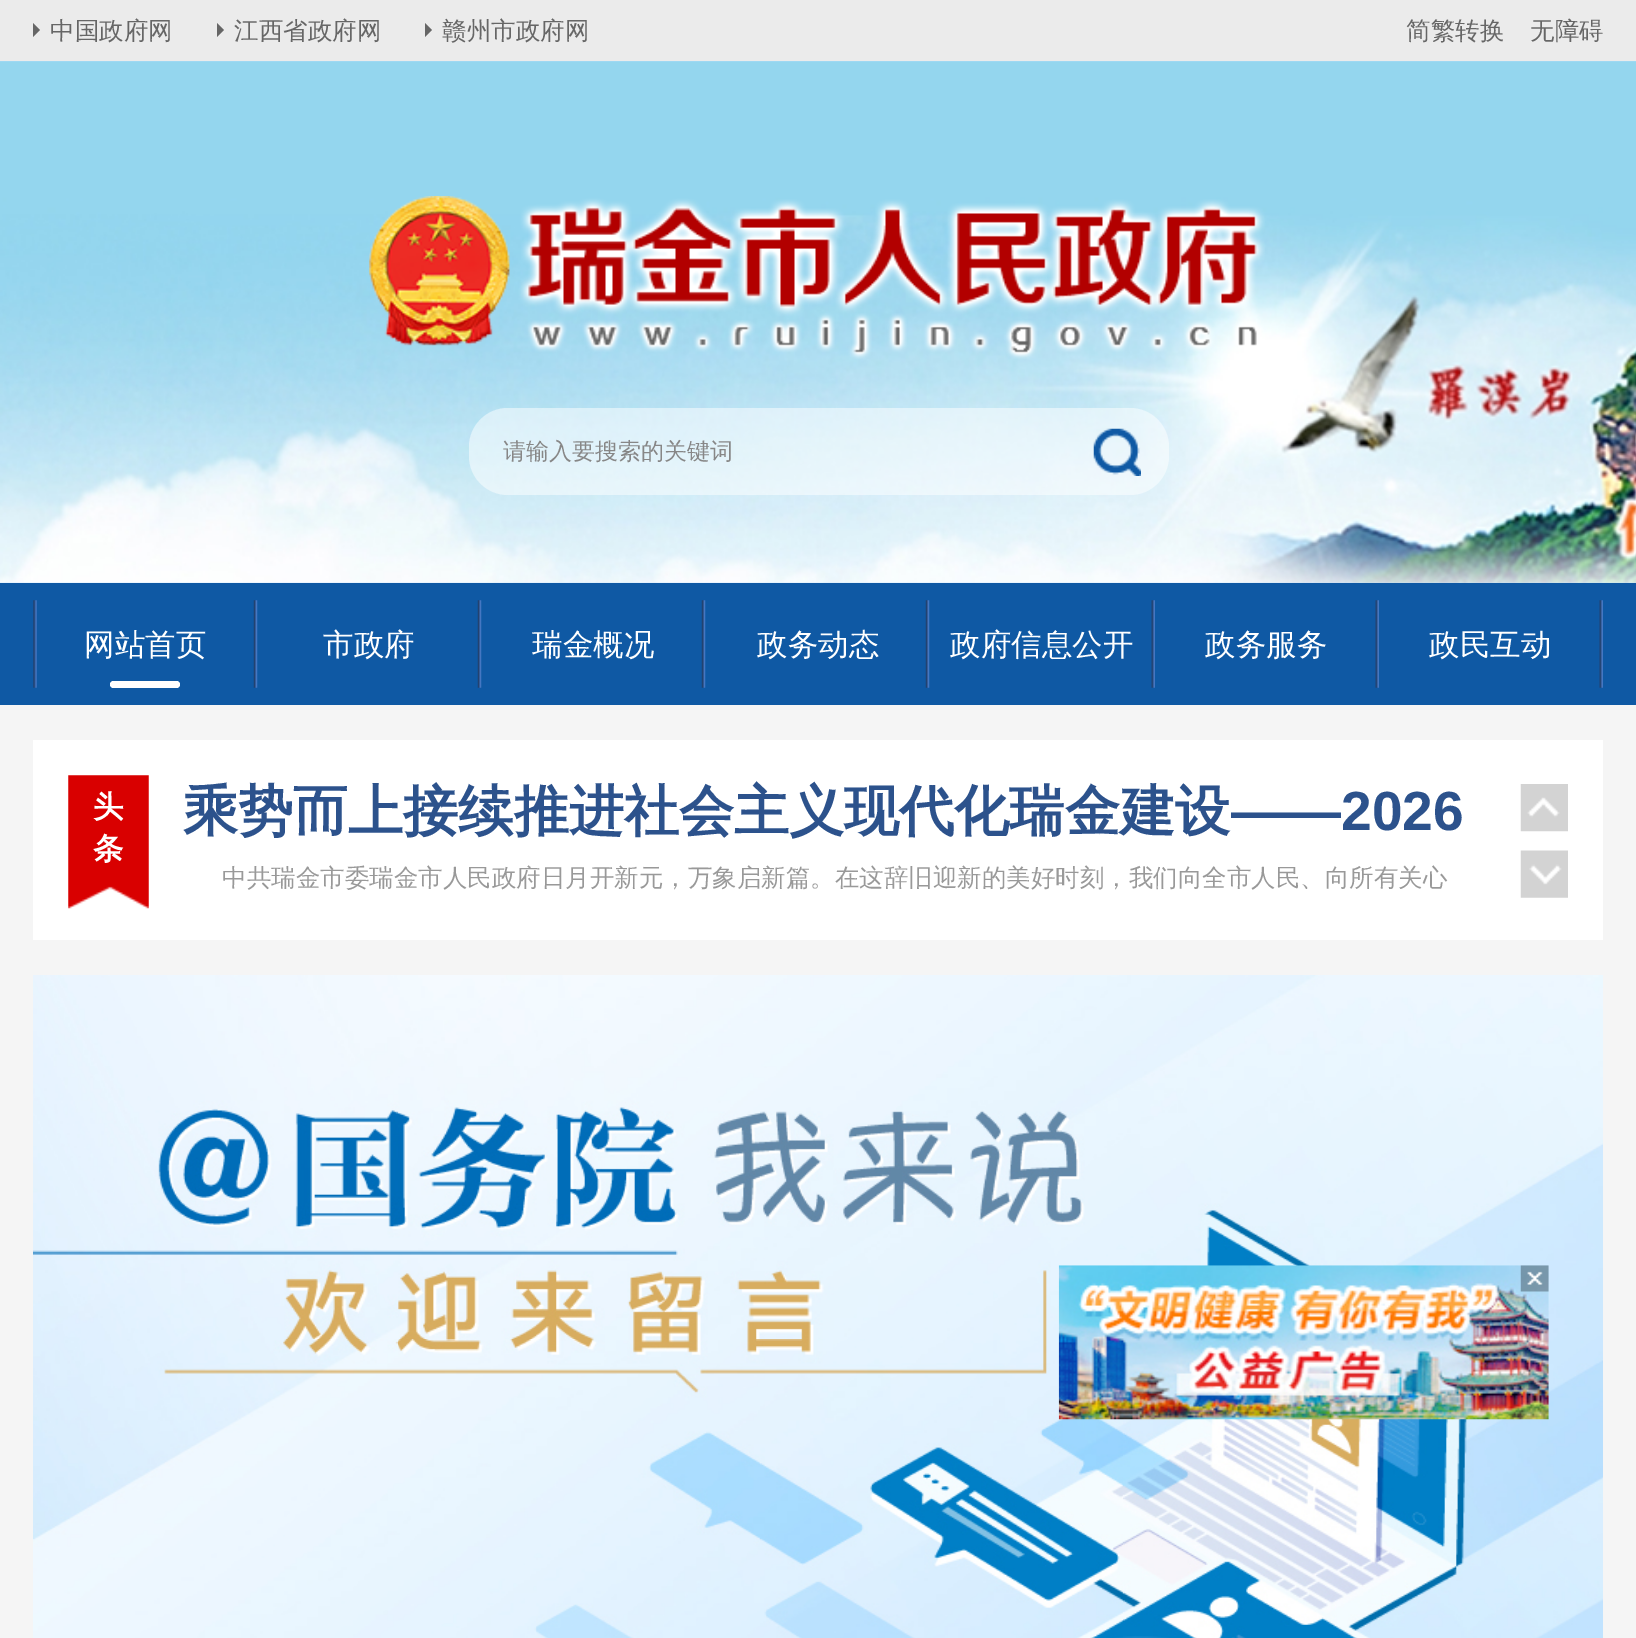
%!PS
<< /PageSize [1636 1638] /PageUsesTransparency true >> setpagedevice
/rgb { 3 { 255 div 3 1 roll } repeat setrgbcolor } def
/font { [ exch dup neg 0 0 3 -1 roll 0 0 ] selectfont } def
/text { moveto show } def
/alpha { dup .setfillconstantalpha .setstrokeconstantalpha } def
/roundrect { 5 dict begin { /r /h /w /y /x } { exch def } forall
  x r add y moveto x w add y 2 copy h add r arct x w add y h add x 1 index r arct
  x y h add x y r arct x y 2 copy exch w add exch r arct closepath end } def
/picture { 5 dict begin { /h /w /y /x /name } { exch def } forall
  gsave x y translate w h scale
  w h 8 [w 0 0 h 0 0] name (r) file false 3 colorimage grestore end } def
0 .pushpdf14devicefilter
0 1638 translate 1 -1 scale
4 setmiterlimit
245 245 245 rgb
0 0 1636 1638 rectfill
235 235 235 rgb
0 0 1636 61 rectfill
102 102 102 rgb
33 37 moveto 0 -14 rlineto 7 7 rlineto closepath fill
217 37 moveto 0 -14 rlineto 7 7 rlineto closepath fill
425 37 moveto 0 -14 rlineto 7 7 rlineto closepath fill
(img_01.rgb) 0 61 1636 522 picture
(img_02.rgb) 369 196 896 163 picture
0.5 alpha
255 255 255 rgb
469 408 700 87 39 roundrect fill
1 alpha
(img_03.rgb) 1093 428 48 48 picture
15 89 164 rgb
0 583 1636 122 rectfill
(img_04.rgb) 33 600 4 88 picture
255 255 255 rgb
110 681 70 7 3.5 roundrect fill
(img_05.rgb) 253 600 5 88 picture
(img_05.rgb) 477 600 5 88 picture
(img_06.rgb) 701 600 5 88 picture
(img_05.rgb) 925 600 5 88 picture
(img_07.rgb) 1151 600 4 88 picture
(img_07.rgb) 1375 600 4 88 picture
(img_07.rgb) 1599 600 4 88 picture
33 740 1570 200 rectfill
(img_08.rgb) 68 775 81 134 picture
(img_09.rgb) 1520 784 48 48 picture
(img_10.rgb) 1520 850 48 48 picture
(img_11.rgb) 33 975 1570 663 picture
(img_12.rgb) 1058 1265 491 155 picture
(img_13.rgb) 1520 1265 29 27 picture
/WenQuanYiZenHei-Medium 24.5 font
102 102 102 rgb
(中国政府网) 50 39 text
(江西省政府网) 234 39 text
(赣州市政府网) 442 39 text
(简繁转换) 1406 39 text
(无障碍) 1530 39 text
/WenQuanYiZenHei-Medium 23 font
135 135 135 rgb
(请输入要搜索的关键词) 503 459 text
/WenQuanYiZenHei-Medium 30.5 font
255 255 255 rgb
(网站首页) 84 655 text
(市政府) 323 655 text
(瑞金概况) 532 655 text
(政务动态) 757 655 text
(政府信息公开) 950 655 text
(政务服务) 1205 655 text
(政民互动) 1429 655 text
/WenQuanYiZenHei-Bold 30.5 font
(头) 93 817 text
(条) 93 859 text
/WenQuanYiZenHei-Bold 55.1 font
44 82 140 rgb
(乘势而上接续推进社会主义现代化瑞金建设) 183 830 text
/LiberationSans-Bold 55.1 font
(——2026) 1231 830 text
/WenQuanYiZenHei-Medium 24.5 font
153 153 153 rgb
(中共瑞金市委瑞金市人民政府日月开新元，万象启新篇。在这辞旧迎新的美好时刻，我们向全市人民、向所有关心) 222 886 text
.poppdf14devicefilter showpage
